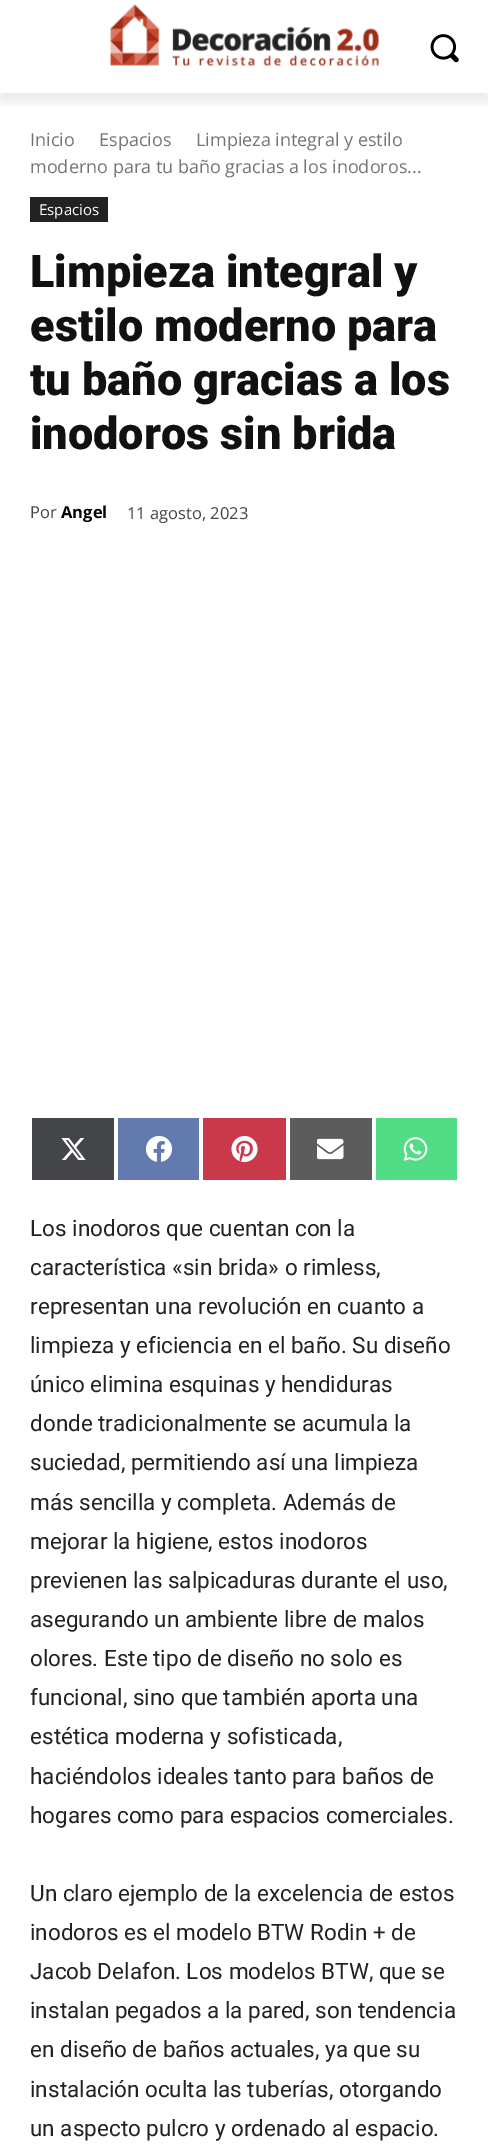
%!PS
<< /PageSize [488 2150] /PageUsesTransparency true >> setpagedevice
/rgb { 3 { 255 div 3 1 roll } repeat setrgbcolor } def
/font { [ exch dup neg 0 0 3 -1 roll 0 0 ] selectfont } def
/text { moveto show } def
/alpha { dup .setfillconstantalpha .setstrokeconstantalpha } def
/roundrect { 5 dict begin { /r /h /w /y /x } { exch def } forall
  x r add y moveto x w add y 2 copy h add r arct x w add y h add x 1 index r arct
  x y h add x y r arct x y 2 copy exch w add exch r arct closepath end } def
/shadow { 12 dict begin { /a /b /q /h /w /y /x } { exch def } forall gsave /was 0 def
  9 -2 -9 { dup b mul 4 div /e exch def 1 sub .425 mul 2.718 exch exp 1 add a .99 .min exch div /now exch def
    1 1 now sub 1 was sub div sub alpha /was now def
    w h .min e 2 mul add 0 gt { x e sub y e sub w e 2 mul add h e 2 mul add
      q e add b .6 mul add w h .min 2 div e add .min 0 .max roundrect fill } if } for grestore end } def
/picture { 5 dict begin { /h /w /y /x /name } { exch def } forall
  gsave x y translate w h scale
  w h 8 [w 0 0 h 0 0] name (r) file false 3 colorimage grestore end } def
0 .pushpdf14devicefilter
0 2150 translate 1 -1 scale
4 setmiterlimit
255 255 255 rgb
0 0 488 2150 rectfill
(img_01.rgb) 110 4 269 62 picture
(img_02.rgb) 430 34 29 29 picture
gsave
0 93 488 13 rectclip
0 0 0 rgb
0 9 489 93 0 6 0.08 shadow
grestore
34 34 34 rgb
30 197 78 25 rectfill
67 69 72 rgb
32 1118 82 62 rectfill
(img_03.rgb) 61 1138 25 22 picture
98 122 173 rgb
118 1118 81 62 rectfill
(img_04.rgb) 146 1136 27 26 picture
202 57 73 rgb
203 1118 83 62 rectfill
(img_05.rgb) 231 1136 27 27 picture
92 92 92 rgb
290 1118 82 62 rectfill
(img_06.rgb) 317 1138 27 22 picture
81 220 133 rgb
376 1118 81 62 rectfill
(img_07.rgb) 403 1137 25 24 picture
/OpenSans-Regular 18 font
116 116 116 rgb
(Inicio) 30 146 text
(Espacios) 99 146 text
(Limpieza integral y estilo) 196 146 text
(moderno para tu baño gracias a los inodoros...) 30 173 text
/OpenSans-Regular 15 font
255 255 255 rgb
(Espacios) 39 215 text
/Roboto-Black 45 font
17 17 17 rgb
(Limpieza integral y) 30 287 text
(estilo moderno para) 30 341 text
(tu baño gracias a los) 30 395 text
(inodoros sin brida) 30 449 text
/OpenSans-Regular 16.5 font
68 68 68 rgb
(Por) 30 518 text
/OpenSans-Bold 16.5 font
0 0 0 rgb
(Angel) 61 518 text
/OpenSans-Regular 16.5 font
68 68 68 rgb
(11 agosto, 2023) 127 519 text
/Roboto-Regular 22.5 font
34 34 34 rgb
(Los inodoros que cuentan con la) 30 1236 text
(característica «sin brida» o rimless,) 30 1275 text
(representan una revolución en cuanto a) 30 1314 text
(limpieza y eficiencia en el baño. Su diseño) 30 1353 text
(único elimina esquinas y hendiduras) 30 1392 text
(donde tradicionalmente se acumula la) 30 1431 text
(suciedad, permitiendo así una limpieza) 30 1470 text
(más sencilla y completa. Además de) 30 1510 text
(mejorar la higiene, estos inodoros) 30 1549 text
(previenen las salpicaduras durante el uso,) 30 1588 text
(asegurando un ambiente libre de malos) 30 1627 text
(olores. Este tipo de diseño no solo es) 30 1666 text
(funcional, sino que también aporta una) 30 1705 text
(estética moderna y sofisticada,) 30 1744 text
(haciéndolos ideales tanto para baños de) 30 1784 text
(hogares como para espacios comerciales.) 30 1823 text
(Un claro ejemplo de la excelencia de estos) 30 1901 text
(inodoros es el modelo BTW Rodin + de) 30 1940 text
(Jacob Delafon. Los modelos BTW, que se) 30 1979 text
(instalan pegados a la pared, son tendencia) 30 2018 text
(en diseño de baños actuales, ya que su) 30 2057 text
(instalación oculta las tuberías, otorgando) 30 2097 text
(un aspecto pulcro y ordenado al espacio.) 30 2136 text
.poppdf14devicefilter showpage
